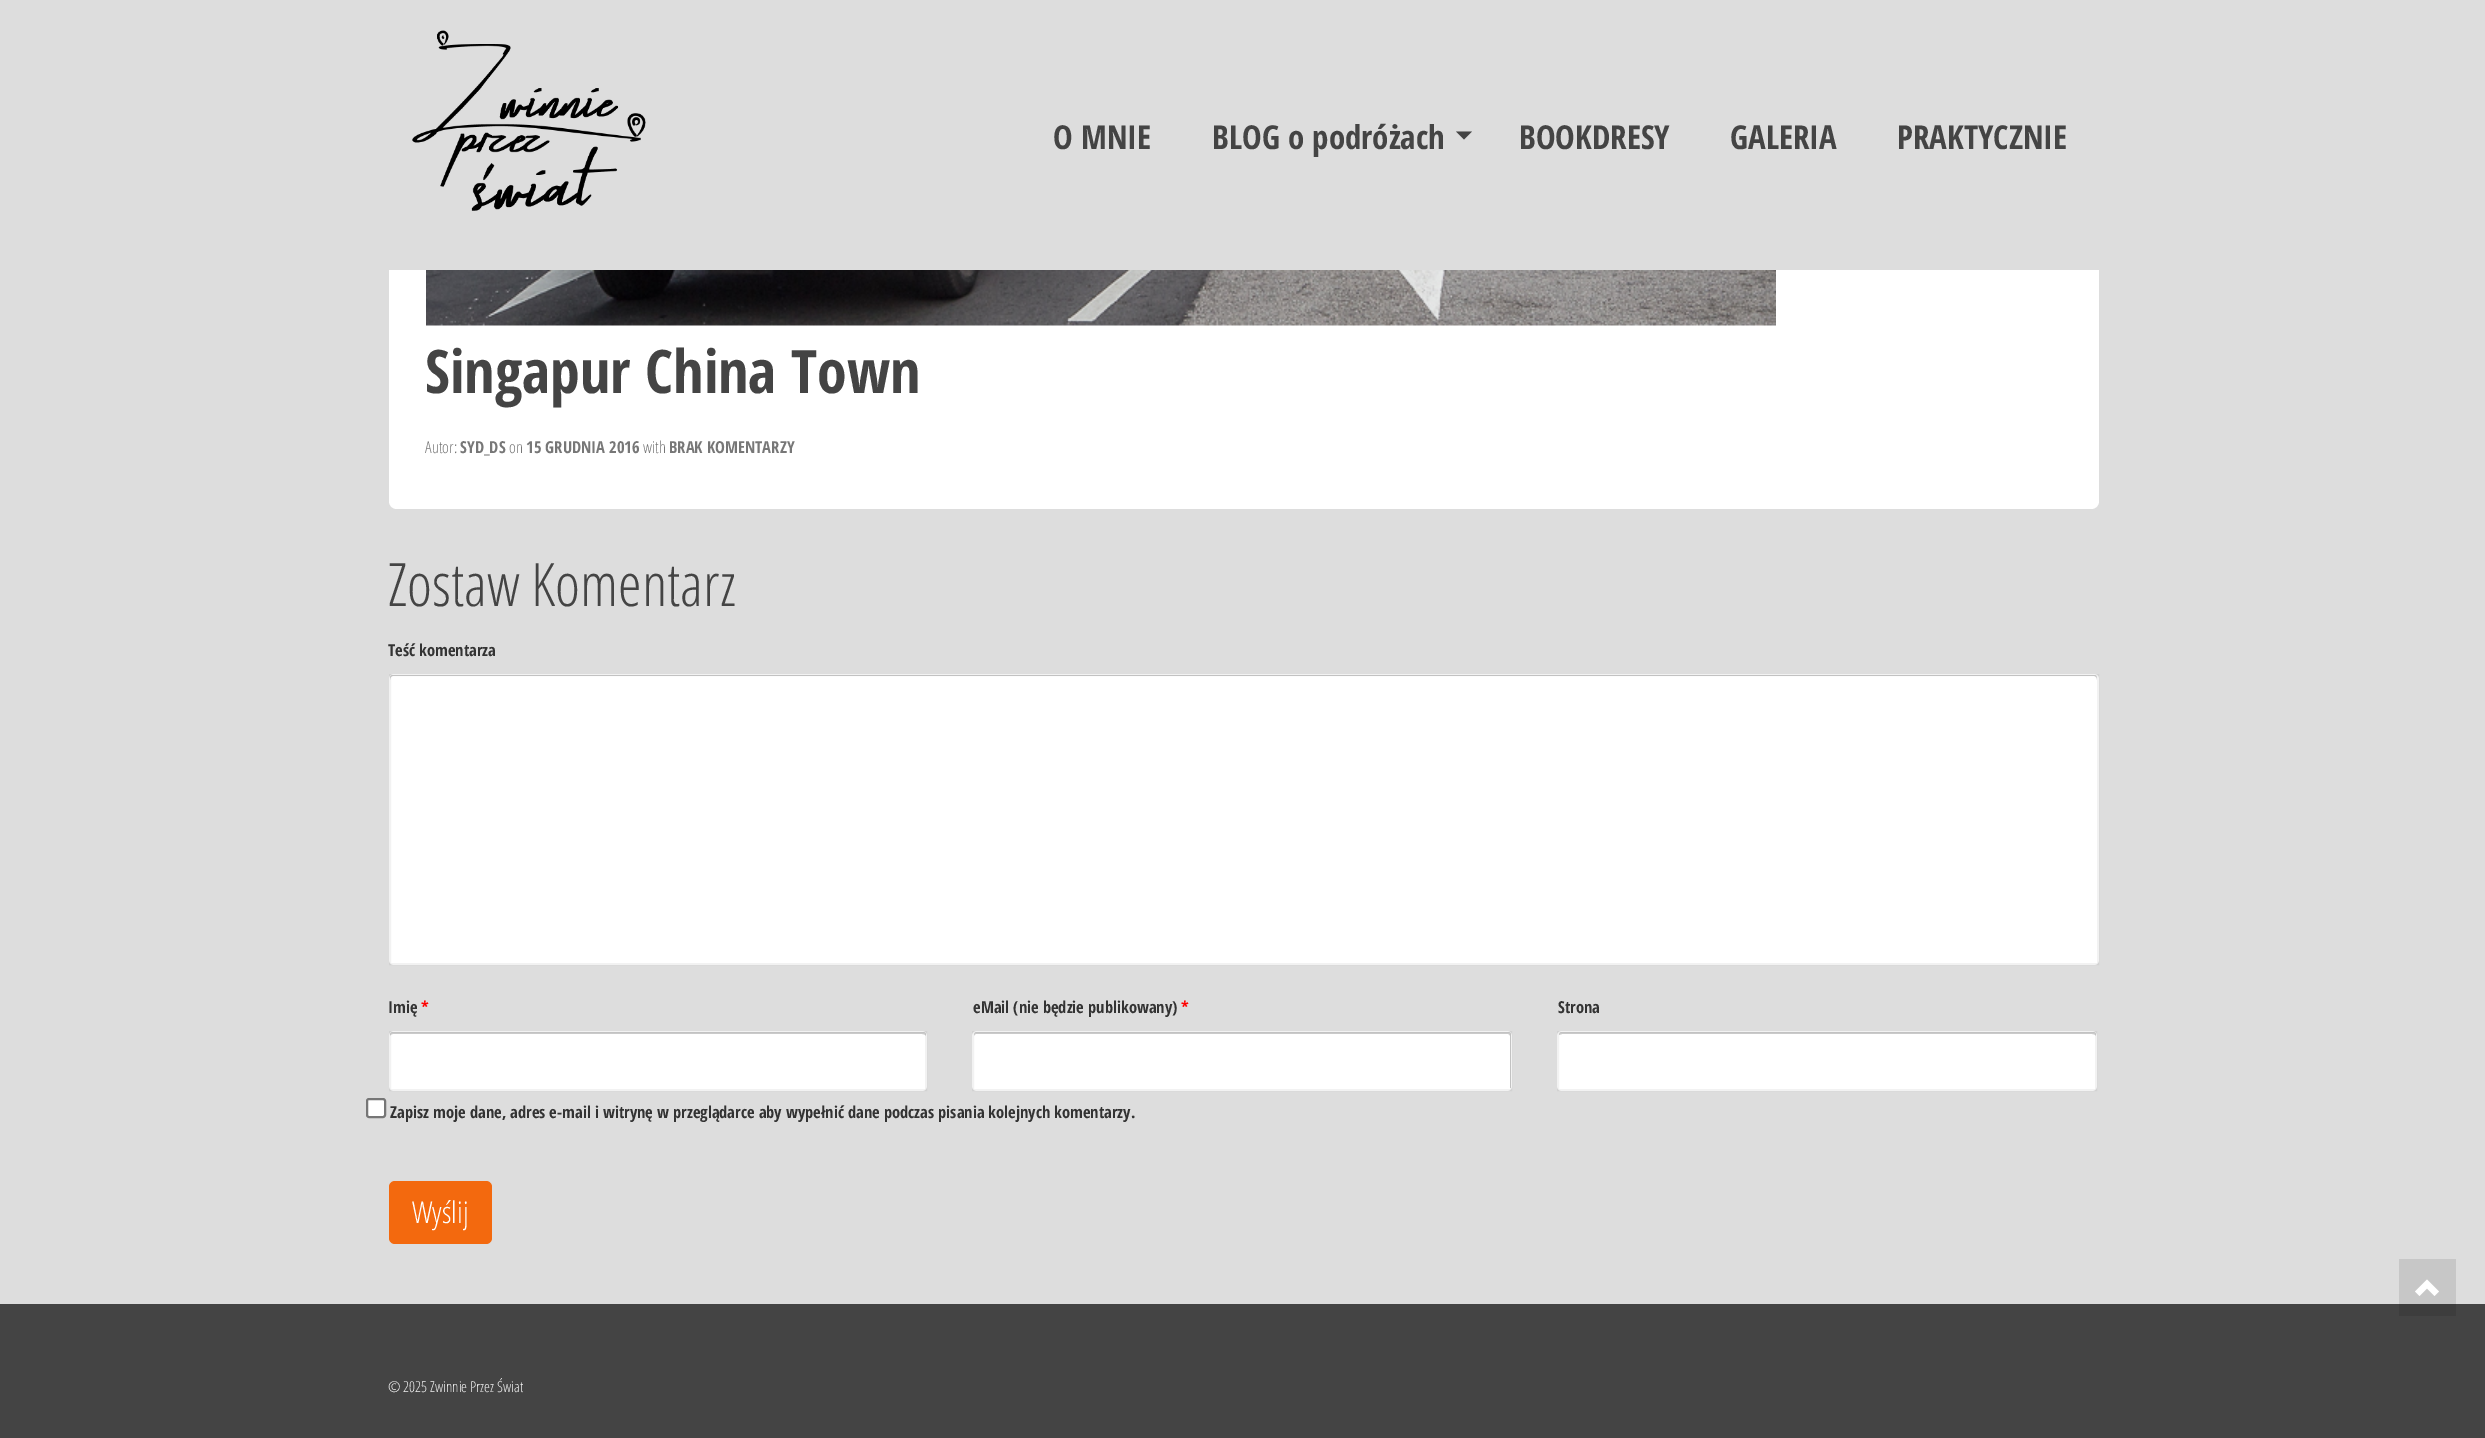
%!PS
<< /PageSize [2485 1438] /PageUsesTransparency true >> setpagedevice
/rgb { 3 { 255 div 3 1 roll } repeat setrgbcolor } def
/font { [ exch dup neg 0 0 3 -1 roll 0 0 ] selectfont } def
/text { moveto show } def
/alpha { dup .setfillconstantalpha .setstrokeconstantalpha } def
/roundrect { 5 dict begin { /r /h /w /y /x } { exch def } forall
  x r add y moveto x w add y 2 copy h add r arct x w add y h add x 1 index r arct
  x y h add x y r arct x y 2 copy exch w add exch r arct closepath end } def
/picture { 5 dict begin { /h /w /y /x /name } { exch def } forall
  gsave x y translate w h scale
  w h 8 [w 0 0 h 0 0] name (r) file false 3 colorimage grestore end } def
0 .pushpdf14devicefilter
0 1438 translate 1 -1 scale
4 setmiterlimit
221 221 221 rgb
0 0 2485 1438 rectfill
255 255 255 rgb
389 -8 moveto 1710 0 rlineto 0 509 rlineto 0 4.5 -3.5 8 -8 8 rcurveto -1694 0 rlineto -4.5 0 -8 -3.5 -8 -8 rcurveto closepath fill
221 221 221 rgb
389 0 1710 270 rectfill
(img_01.rgb) 412 30 234 181 picture
68 68 68 rgb
1456 131.5 moveto 8 8 rlineto 8 -8 rlineto closepath fill
199 199 199 rgb
2399 1259 57 45 rectfill
(img_02.rgb) 426 270 1350 56 picture
255 255 255 rgb
389 674 1710 291 5 roundrect fill
204 204 204 rgb
393 676 moveto 1701 0 rlineto 2 0 3 2 3 4 rcurveto 0 -2 rlineto 0 -2 -1 -3 -3 -3 rcurveto -1701 0 rlineto -2 0 -3 1 -3 3 rcurveto 0 2 rlineto 0 -2 1 -4 3 -4 rcurveto closepath fill
0.05 alpha
0 0 0 rgb
2 setlinewidth
390 675 1708 289 rectstroke
1 alpha
255 255 255 rgb
389 1031 538 60 5 roundrect fill
204 204 204 rgb
393 1034 moveto 529 0 rlineto 2 0 4 1 4 2 rcurveto 0 -1 rlineto 0 -2 -1 -3 -3 -3 rcurveto -530 0 rlineto -2 0 -3 1 -3 3 rcurveto 0 1 rlineto 0 -1 1 -2 3 -2 rcurveto closepath fill
0.05 alpha
0 0 0 rgb
390 1032 536 58 rectstroke
1 alpha
255 255 255 rgb
972 1031 540 60 5 roundrect fill
204 204 204 rgb
976 1034 moveto 532 0 rlineto 1 0 2 1 2 2 rcurveto 0 52 rlineto 1 0 1 -1 1 -2 rcurveto 0 -51 rlineto 0 -2 -1 -3 -3 -3 rcurveto -531 0 rlineto -2 0 -3 1 -3 3 rcurveto 0 1 rlineto 0 -1 1 -2 2 -2 rcurveto closepath fill
0.05 alpha
0 0 0 rgb
973 1032 538 58 rectstroke
1 alpha
255 255 255 rgb
1557 1031 540 60 5 roundrect fill
204 204 204 rgb
1562 1034 moveto 530 0 rlineto 2 0 4 1 4 2 rcurveto 0 -1 rlineto 0 -2 -1 -3 -3 -3 rcurveto -531 0 rlineto -2 0 -3 1 -3 3 rcurveto closepath fill
0.05 alpha
0 0 0 rgb
1558 1032 538 58 rectstroke
1 alpha
255 255 255 rgb
367 1099 18 18 2 roundrect gsave fill grestore
118 118 118 rgb
stroke
243 105 14 rgb
389 1181 103 63 6 roundrect fill
68 68 68 rgb
0 1304 2485 134 rectfill
61 61 61 rgb
2399 1304 57 12 rectfill
255 255 255 rgb
2415 1291.5 moveto 4.5 4.5 rlineto 7.5 -7.5 rlineto 7.5 7.5 rlineto 4.5 -4.5 rlineto -12 -12 rlineto closepath fill
/OpenSansCondensed-Bold 33 font
68 68 68 rgb
(O MNIE) 1053 149 text
(BLOG o podróżach) 1212 149 text
(BOOKDRESY) 1519 149 text
(GALERIA) 1730 149 text
(PRAKTYCZNIE) 1897 149 text
/OpenSansCondensed-Bold 60 font
(Singapur China Town) 425 393 text
/OpenSansCondensed-Light 16.5 font
119 119 119 rgb
(Autor:) 425 453 text
/OpenSansCondensed-Bold 16.5 font
(SYD_DS) 460 453 text
/OpenSansCondensed-Light 16.5 font
(on) 509 453 text
/OpenSansCondensed-Bold 16.5 font
(15 GRUDNIA 2016) 526 453 text
/OpenSansCondensed-Light 16.5 font
(with) 643 453 text
/OpenSansCondensed-Bold 16.5 font
(BRAK KOMENTARZY) 669 453 text
/OpenSansCondensed-Light 60 font
68 68 68 rgb
(Zostaw Komentarz) 388 606 text
/OpenSansCondensed-Bold 16.5 font
51 51 51 rgb
(Teść komentarza) 388 656 text
(Imię) 388 1013 text
255 0 0 rgb
(*) 421 1013 text
51 51 51 rgb
(eMail \(nie będzie publikowany\)) 973 1013 text
255 0 0 rgb
(*) 1181 1013 text
51 51 51 rgb
(Strona) 1558 1013 text
(Zapisz moje dane, adres e-mail i witrynę w przeglądarce aby wypełnić dane podczas pisania kolejnych komentarzy.) 390 1118 text
/OpenSansCondensed-Light 30 font
255 255 255 rgb
(Wyślij) 412 1223 text
/OpenSansCondensed-Light 15 font
242 242 242 rgb
(© 2025 Zwinnie Przez Świat) 388 1392 text
.poppdf14devicefilter showpage
